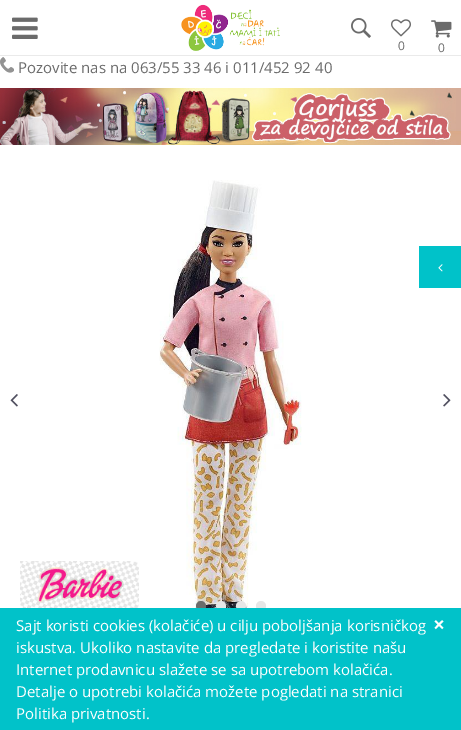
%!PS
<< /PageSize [461 730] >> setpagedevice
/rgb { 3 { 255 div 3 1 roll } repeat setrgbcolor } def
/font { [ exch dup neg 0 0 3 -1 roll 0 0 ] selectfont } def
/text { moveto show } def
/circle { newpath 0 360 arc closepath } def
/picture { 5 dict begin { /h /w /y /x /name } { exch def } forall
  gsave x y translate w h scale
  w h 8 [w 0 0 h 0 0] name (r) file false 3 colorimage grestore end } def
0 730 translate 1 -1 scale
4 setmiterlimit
255 255 255 rgb
0 0 461 730 rectfill
(img_01.rgb) 181 4 99 47 picture
234 234 234 rgb
0 55 461 1 rectfill
(img_02.rgb) 12 17 26 22 picture
(img_03.rgb) 351 18 20 20 picture
(img_04.rgb) 391 19 20 18 picture
(img_05.rgb) 431 20 21 18 picture
(img_06.rgb) 0 57 14 16 picture
(img_07.rgb) 0 88 461 57 picture
(img_08.rgb) 159 180 143 428 picture
(img_09.rgb) 10 394 8 13 picture
(img_10.rgb) 443 394 8 13 picture
107 107 107 rgb
201 606 5 circle fill
230 230 230 rgb
221 606 5 circle fill
241 606 5 circle fill
261 606 5 circle fill
(img_11.rgb) 20 561 119 47 picture
0 194 201 rgb
419 246 42 42 rectfill
(img_12.rgb) 438 264 5 8 picture
1 194 201 rgb
0 608 461 122 rectfill
/OpenSans-Regular 12 font
107 107 107 rgb
(0) 398 50 text
(0) 438 52 text
/OpenSans-Regular 15 font
(Pozovite nas na 063/55 33 46 i 011/452 92 40) 18 73 text
255 255 255 rgb
(Sajt koristi cookies \(kolačiće\) u cilju poboljšanja korisničkog) 16 631 text
(iskustva. Ukoliko nastavite da pregledate i koristite našu) 16 653 text
(Internet prodavnicu slažete se sa upotrebom kolačića.) 16 675 text
(Detalje o upotrebi kolačića možete pogledati na stranici) 16 697 text
(Politika privatnosti.) 16 719 text
/OpenSans-Bold 21 font
(×) 433 632 text
showpage
